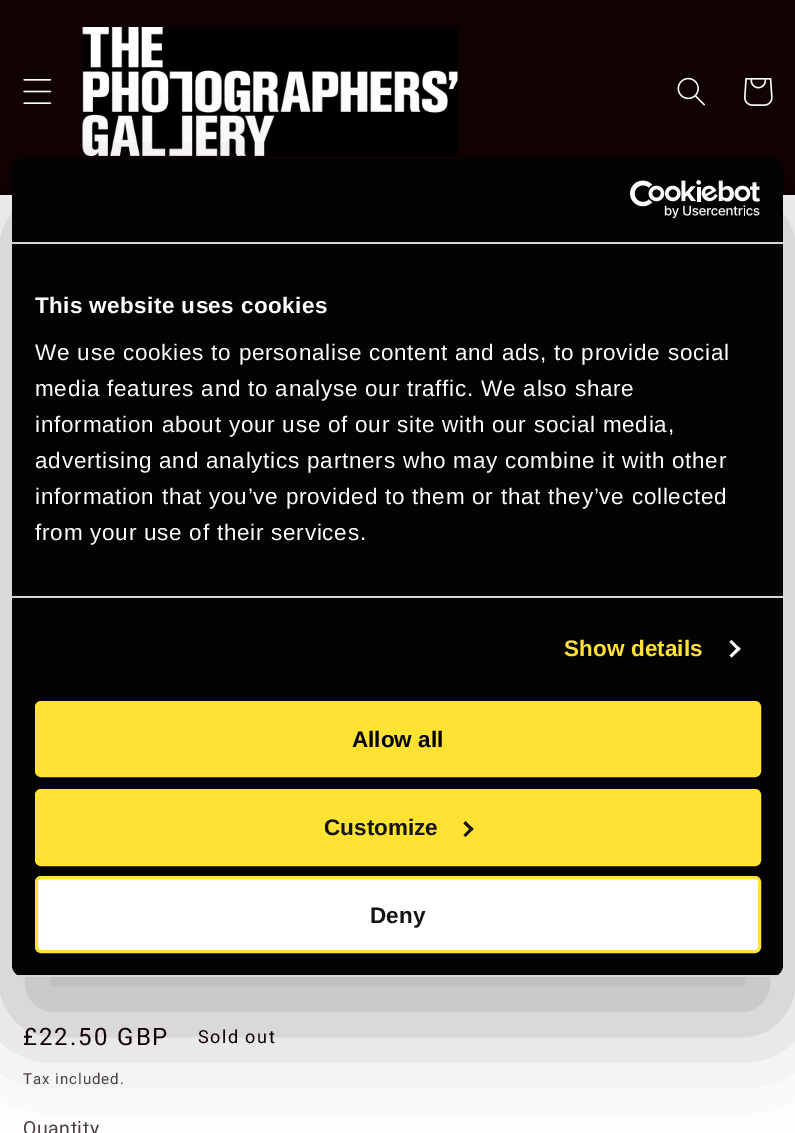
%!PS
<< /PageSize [795 1133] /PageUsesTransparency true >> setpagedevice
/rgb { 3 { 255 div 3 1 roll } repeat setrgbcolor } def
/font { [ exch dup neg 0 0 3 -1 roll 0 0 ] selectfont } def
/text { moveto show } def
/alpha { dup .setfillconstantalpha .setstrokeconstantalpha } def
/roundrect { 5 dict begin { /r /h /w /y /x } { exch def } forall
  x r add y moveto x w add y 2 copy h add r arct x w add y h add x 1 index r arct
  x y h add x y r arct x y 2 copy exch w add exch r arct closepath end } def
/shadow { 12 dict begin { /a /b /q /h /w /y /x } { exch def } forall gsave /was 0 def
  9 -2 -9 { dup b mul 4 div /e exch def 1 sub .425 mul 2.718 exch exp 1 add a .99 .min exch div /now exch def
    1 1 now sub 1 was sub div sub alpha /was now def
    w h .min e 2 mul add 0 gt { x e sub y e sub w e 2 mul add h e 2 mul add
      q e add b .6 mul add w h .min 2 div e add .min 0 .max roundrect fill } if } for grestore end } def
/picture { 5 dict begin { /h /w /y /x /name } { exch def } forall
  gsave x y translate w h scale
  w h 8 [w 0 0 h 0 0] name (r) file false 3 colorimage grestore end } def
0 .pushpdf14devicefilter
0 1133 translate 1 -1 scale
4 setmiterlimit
255 255 255 rgb
0 0 795 1133 rectfill
16 1 2 rgb
0 0 795 195 rectfill
(img_01.rgb) 23 79 29 25 picture
(img_02.rgb) 82 27 376 129 picture
(img_03.rgb) 677 77 28 29 picture
(img_04.rgb) 744 78 29 28 picture
0 0 0 rgb
12 206 771 819 12 51 0.3 shadow
3 3 3 rgb
12 158 771 819 12 roundrect fill
214 214 214 rgb
12 242 771 2 rectfill
(img_05.rgb) 630 180 130 39 picture
12 596 771 2 rectfill
253 252 252 rgb
731.5 640 moveto 9 9 rlineto -2 2 rlineto -9 -9 rlineto closepath fill
738.5 646.5 moveto 2 2.5 rlineto -9 8.5 rlineto -2 -2 rlineto closepath fill
gsave
12 158 771 819 12 roundrect clip newpath
214 214 214 rgb
12 975 771 2 rectfill
grestore
255 226 50 rgb
36.5 702.5 723 73 4.5 roundrect gsave fill grestore
3 setlinewidth
stroke
36.5 790.5 723 74 4.5 roundrect gsave fill grestore
stroke
20 20 20 rgb
465.5 821 moveto 8 8 rlineto -2 2 rlineto -8 -7.5 rlineto closepath fill
471.5 827 moveto 2 2 rlineto -8 8 rlineto -2 -2 rlineto closepath fill
255 255 255 rgb
36.5 877.5 723 74 4.5 roundrect gsave fill grestore
255 226 50 rgb
stroke
/LiberationSans-Bold 22.5 font
253 252 252 rgb
35 313 moveto 0.4 0 (This website uses cookies) ashow
/LiberationSans-Regular 22.5 font
35 360 moveto 0.75 0 (We use cookies to personalise content and ads, to provide social) ashow
35 396 moveto 0.75 0 (media features and to analyse our traffic. We also share) ashow
35 432 moveto 0.75 0 (information about your use of our site with our social media,) ashow
35 468 moveto 0.75 0 (advertising and analytics partners who may combine it with other) ashow
35 504 moveto 0.75 0 (information that you’ve provided to them or that they’ve collected) ashow
35 540 moveto 0.75 0 (from your use of their services.) ashow
/LiberationSans-Bold 22.5 font
255 226 50 rgb
564 656 moveto 0.1 0 (Show details) ashow
3 3 3 rgb
(Allow all) 352 747 text
20 20 20 rgb
(Customize) 324 835 text
(Deny) 370 923 text
/Roboto-Regular 24 font
16 1 2 rgb
23 1045 moveto 2 0 (£22.50 GBP) ashow
/Roboto-Regular 18 font
198 1043 moveto 1.5 0 (Sold out) ashow
/Roboto-Regular 15 font
76 65 65 rgb
23 1084 moveto 1 0 (Tax included.) ashow
/Roboto-Regular 19.5 font
23 1135 moveto 0.5 0 (Quantity) ashow
.poppdf14devicefilter showpage
